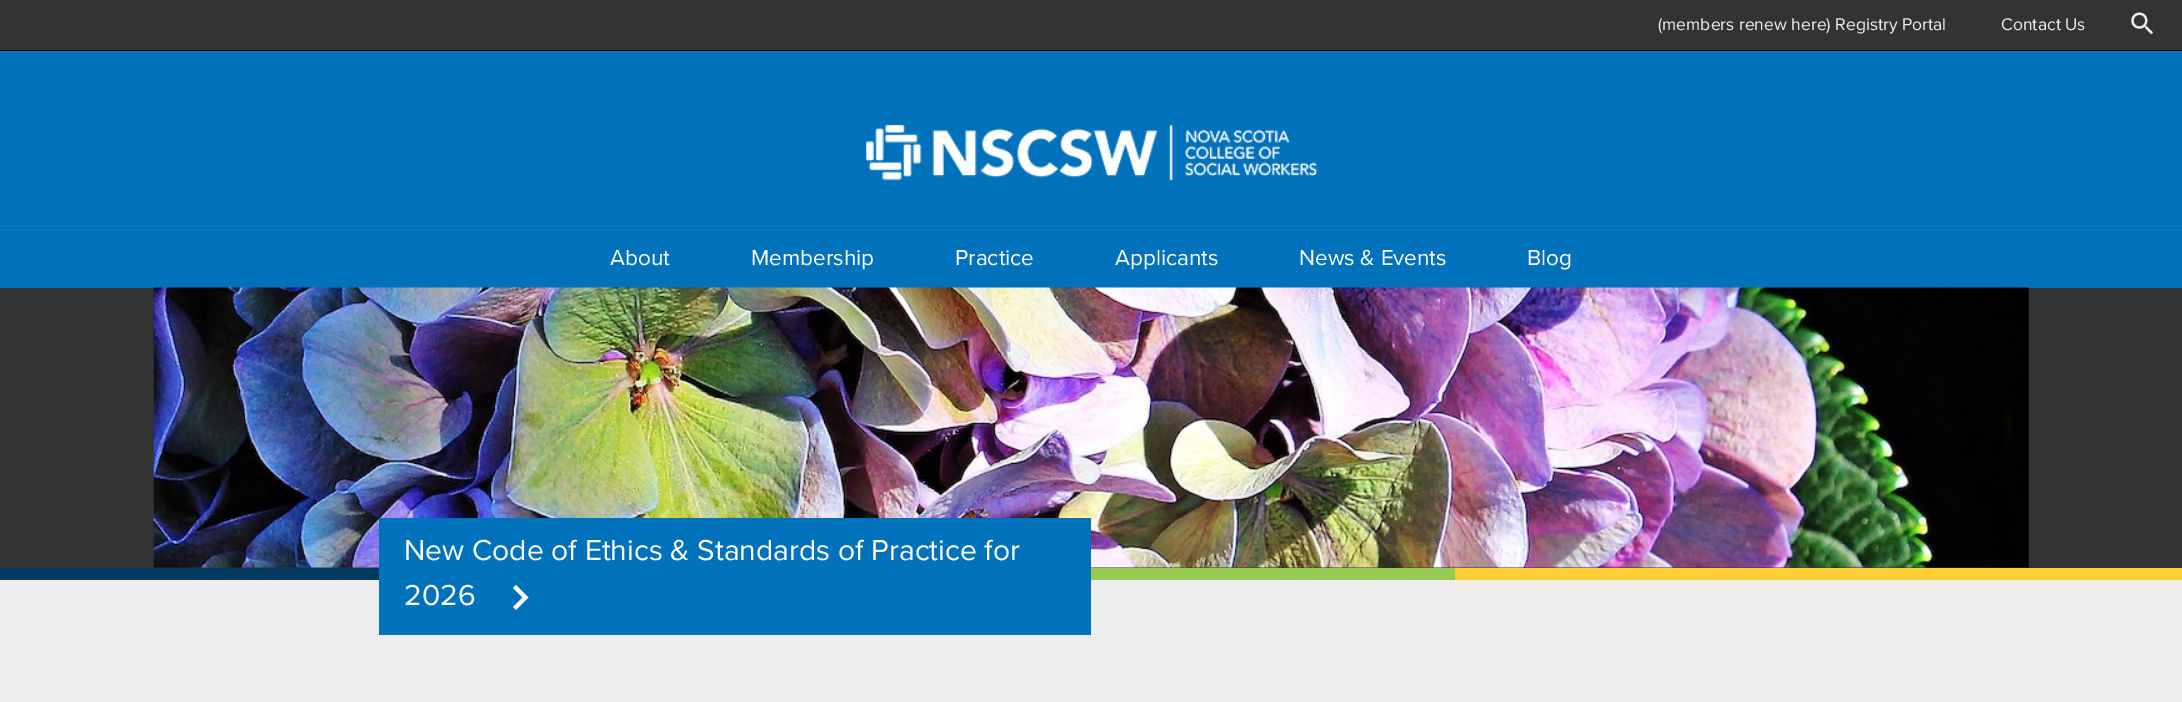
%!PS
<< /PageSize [2182 702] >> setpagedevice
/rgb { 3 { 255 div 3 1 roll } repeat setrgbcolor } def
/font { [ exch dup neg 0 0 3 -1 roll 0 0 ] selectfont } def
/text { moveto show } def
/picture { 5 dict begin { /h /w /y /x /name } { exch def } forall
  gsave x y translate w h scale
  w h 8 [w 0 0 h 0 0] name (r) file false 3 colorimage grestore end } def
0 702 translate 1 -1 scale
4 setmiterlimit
0 114 188 rgb
0 0 2182 702 rectfill
51 51 51 rgb
0 0 2182 50 rectfill
0 0 0 rgb
0 50 2182 1 rectfill
(img_01.rgb) 2131 12 22 23 picture
0 129 214 rgb
0 51 2182 1 rectfill
0 99 163 rgb
0 228 2182 1 rectfill
(img_02.rgb) 866 124 451 57 picture
0 129 214 rgb
0 229 2182 1 rectfill
51 51 51 rgb
0 288 2182 280 rectfill
(img_03.rgb) 153 287 1876 281 picture
237 237 237 rgb
0 580 2182 122 rectfill
0 114 188 rgb
379 518 712 117 rectfill
255 255 255 rgb
513 607 moveto 9.5 -9.5 rlineto -9.5 -9.5 rlineto 3 -3 rlineto 12.5 12.5 rlineto -12.5 12.5 rlineto closepath fill
0 57 93 rgb
0 568 379 12 rectfill
150 202 80 rgb
1091 568 364 12 rectfill
255 205 52 rgb
1455 568 727 12 rectfill
/ProximaNova-Regular 17.5 font
238 238 238 rgb
(\(members renew here\) Registry Portal) 1658 30 text
(Contact Us) 2001 30 text
/ProximaNova-Regular 22.5 font
255 255 255 rgb
(About) 610 265 text
(Membership) 751 265 text
(Practice) 955 265 text
(Applicants) 1115 265 text
(News & Events) 1299 265 text
(Blog) 1527 265 text
/ProximaNova-Regular 30 font
(New Code of Ethics & Standards of Practice for) 404 560 text
(2026) 404 605 text
showpage
